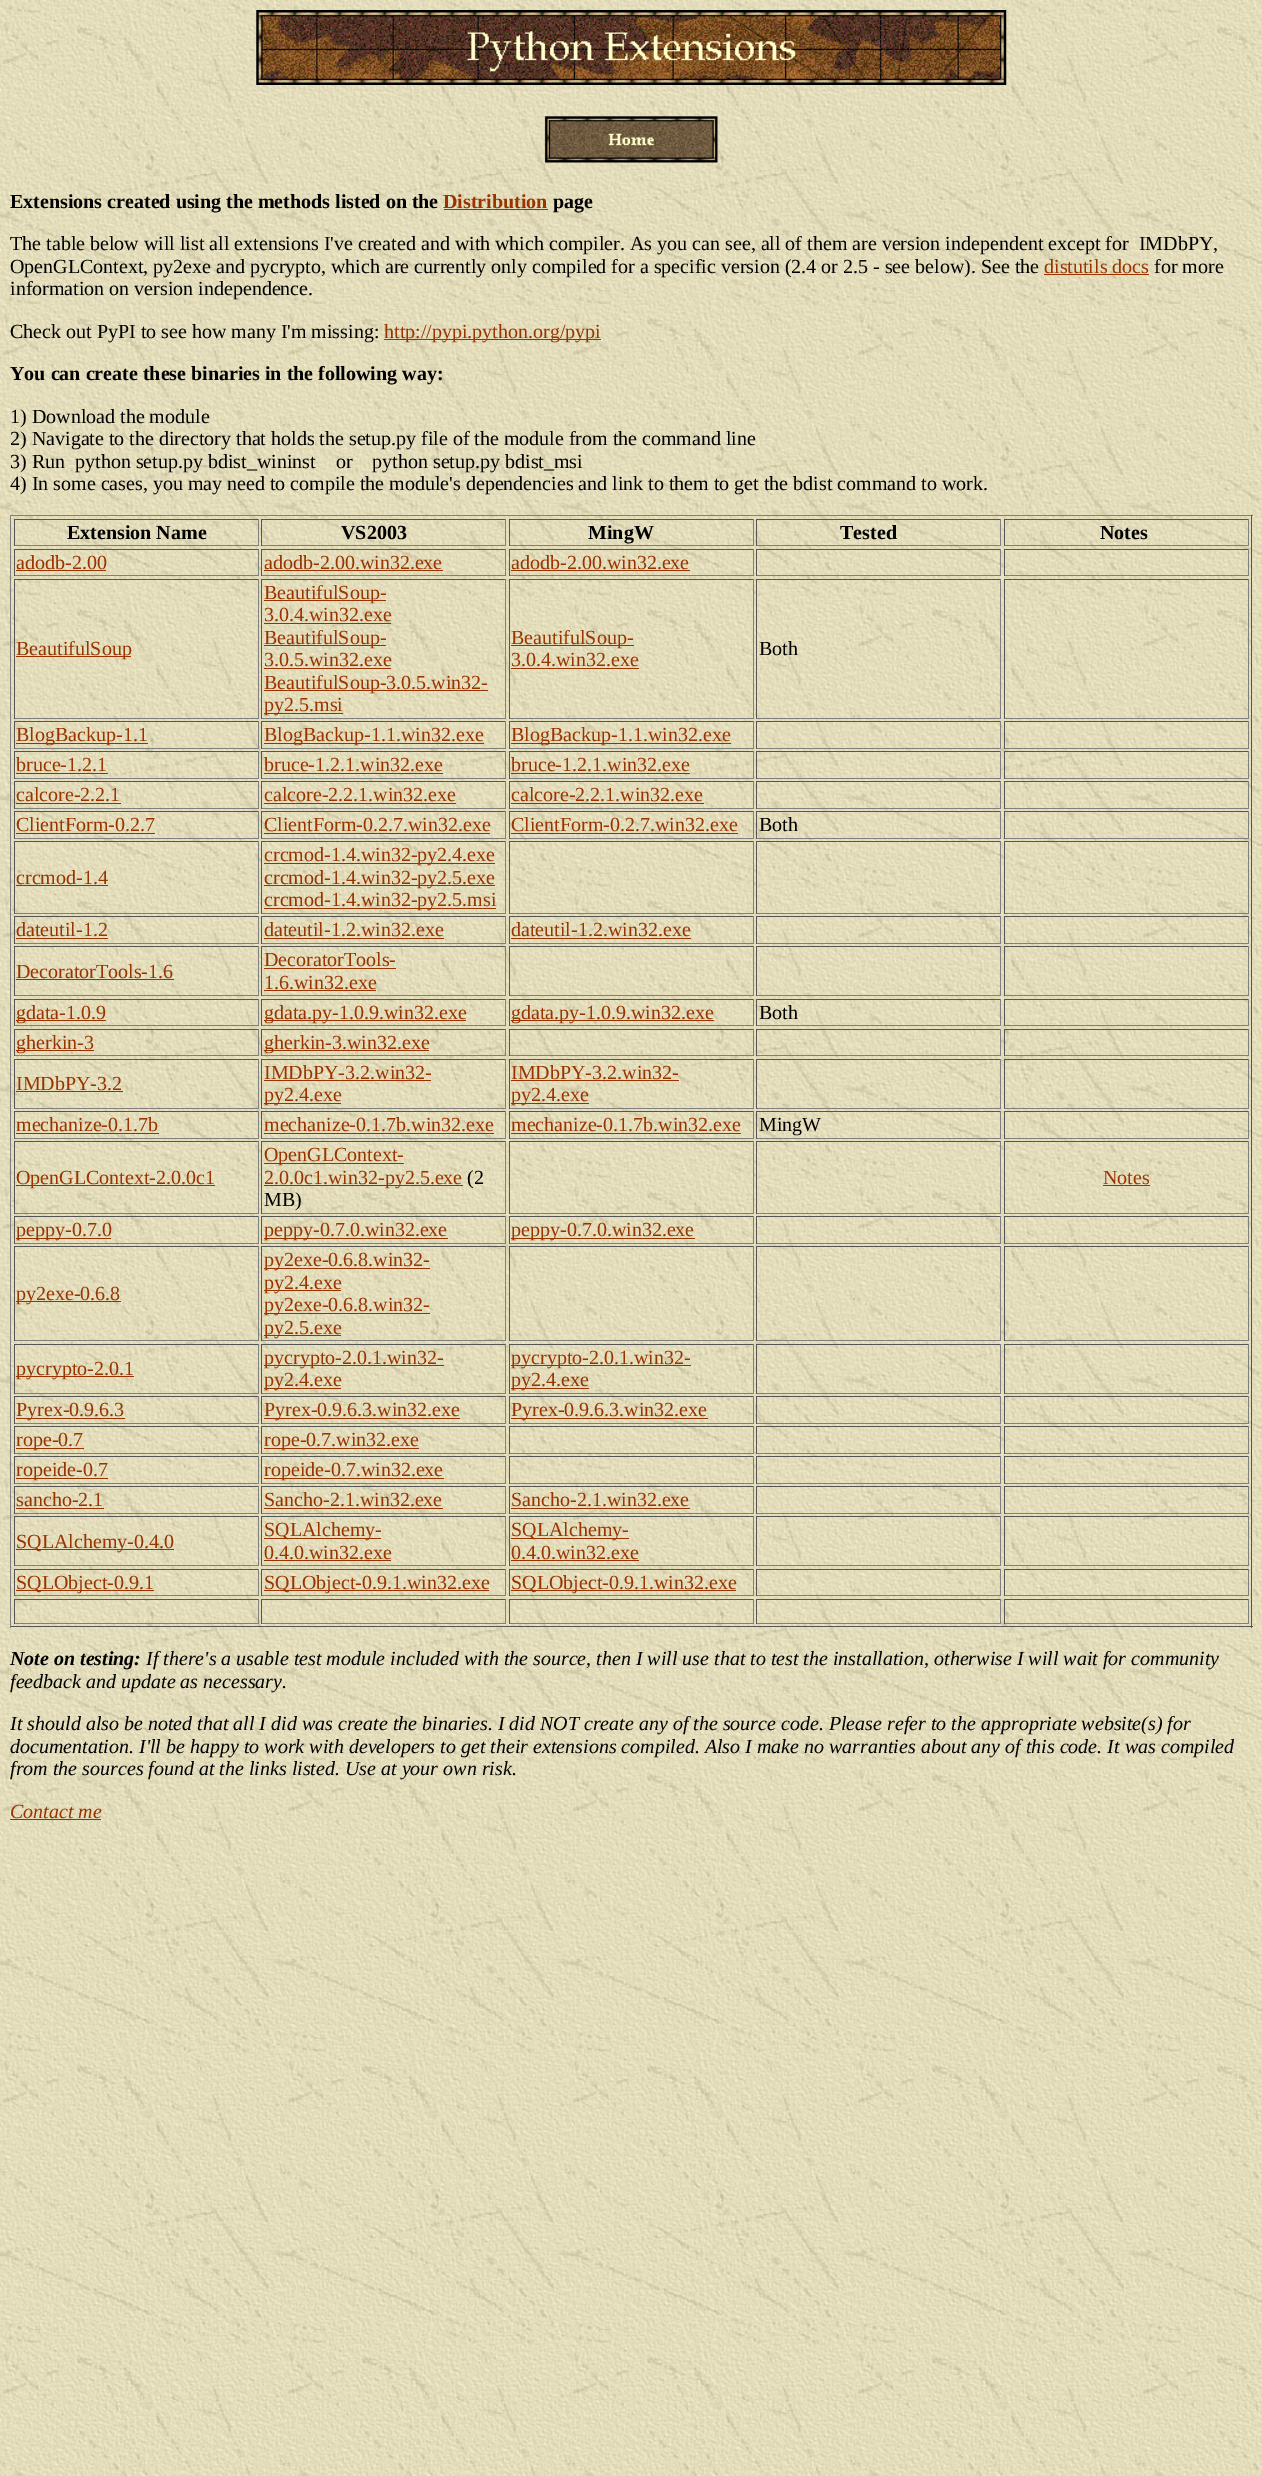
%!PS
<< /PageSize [1262 2476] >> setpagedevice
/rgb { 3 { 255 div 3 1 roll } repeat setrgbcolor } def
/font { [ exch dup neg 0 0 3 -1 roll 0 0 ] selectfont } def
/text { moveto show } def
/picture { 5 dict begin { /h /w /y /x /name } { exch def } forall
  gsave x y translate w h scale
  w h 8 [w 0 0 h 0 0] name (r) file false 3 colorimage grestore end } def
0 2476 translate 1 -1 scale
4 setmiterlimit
255 255 255 rgb
0 0 1262 2476 rectfill
(img_01.rgb) 0 0 1262 2476 picture
(img_02.rgb) 256 10 751 75 picture
(img_03.rgb) 544 116 174 47 picture
153 51 0 rgb
444 209 104 1 rectfill
1044 274 105 1 rectfill
384 339 217 1 rectfill
128 128 128 rgb
10 515 1243 1 rectfill
85 85 85 rgb
1251 515 1 1113 rectfill
10 1626 1243 1 rectfill
128 128 128 rgb
10 515 1 1113 rectfill
85 85 85 rgb
14 519 245 1 rectfill
128 128 128 rgb
258 519 1 27 rectfill
14 545 245 1 rectfill
85 85 85 rgb
14 519 1 27 rectfill
261 519 245 1 rectfill
128 128 128 rgb
505 519 1 27 rectfill
261 545 245 1 rectfill
85 85 85 rgb
261 519 1 27 rectfill
509 519 245 1 rectfill
128 128 128 rgb
753 519 1 27 rectfill
509 545 245 1 rectfill
85 85 85 rgb
509 519 1 27 rectfill
756 519 245 1 rectfill
128 128 128 rgb
1000 519 1 27 rectfill
756 545 245 1 rectfill
85 85 85 rgb
756 519 1 27 rectfill
1004 519 245 1 rectfill
128 128 128 rgb
1248 519 1 27 rectfill
1004 545 245 1 rectfill
85 85 85 rgb
1004 519 1 27 rectfill
14 549 245 1 rectfill
128 128 128 rgb
258 549 1 27 rectfill
14 575 245 1 rectfill
85 85 85 rgb
14 549 1 27 rectfill
153 51 0 rgb
16 570 90 1 rectfill
85 85 85 rgb
261 549 245 1 rectfill
128 128 128 rgb
505 549 1 27 rectfill
261 575 245 1 rectfill
85 85 85 rgb
261 549 1 27 rectfill
153 51 0 rgb
264 570 179 1 rectfill
85 85 85 rgb
509 549 245 1 rectfill
128 128 128 rgb
753 549 1 27 rectfill
509 575 245 1 rectfill
85 85 85 rgb
509 549 1 27 rectfill
153 51 0 rgb
511 570 179 1 rectfill
85 85 85 rgb
756 549 245 1 rectfill
128 128 128 rgb
1000 549 1 27 rectfill
756 575 245 1 rectfill
85 85 85 rgb
756 549 1 27 rectfill
1004 549 245 1 rectfill
128 128 128 rgb
1248 549 1 27 rectfill
1004 575 245 1 rectfill
85 85 85 rgb
1004 549 1 27 rectfill
14 579 245 1 rectfill
128 128 128 rgb
258 579 1 140 rectfill
14 718 245 1 rectfill
85 85 85 rgb
14 579 1 140 rectfill
153 51 0 rgb
16 656 115 1 rectfill
85 85 85 rgb
261 579 245 1 rectfill
128 128 128 rgb
505 579 1 140 rectfill
261 718 245 1 rectfill
85 85 85 rgb
261 579 1 140 rectfill
153 51 0 rgb
264 600 122 1 rectfill
264 623 127 1 rectfill
264 645 122 1 rectfill
264 668 127 1 rectfill
264 690 224 1 rectfill
264 713 79 1 rectfill
85 85 85 rgb
509 579 245 1 rectfill
128 128 128 rgb
753 579 1 140 rectfill
509 718 245 1 rectfill
85 85 85 rgb
509 579 1 140 rectfill
153 51 0 rgb
511 645 123 1 rectfill
511 668 128 1 rectfill
85 85 85 rgb
756 579 245 1 rectfill
128 128 128 rgb
1000 579 1 140 rectfill
756 718 245 1 rectfill
85 85 85 rgb
756 579 1 140 rectfill
1004 579 245 1 rectfill
128 128 128 rgb
1248 579 1 140 rectfill
1004 718 245 1 rectfill
85 85 85 rgb
1004 579 1 140 rectfill
14 721 245 1 rectfill
128 128 128 rgb
258 721 1 28 rectfill
14 748 245 1 rectfill
85 85 85 rgb
14 721 1 28 rectfill
153 51 0 rgb
16 743 132 1 rectfill
85 85 85 rgb
261 721 245 1 rectfill
128 128 128 rgb
505 721 1 28 rectfill
261 748 245 1 rectfill
85 85 85 rgb
261 721 1 28 rectfill
153 51 0 rgb
264 743 220 1 rectfill
85 85 85 rgb
509 721 245 1 rectfill
128 128 128 rgb
753 721 1 28 rectfill
509 748 245 1 rectfill
85 85 85 rgb
509 721 1 28 rectfill
153 51 0 rgb
511 743 220 1 rectfill
85 85 85 rgb
756 721 245 1 rectfill
128 128 128 rgb
1000 721 1 28 rectfill
756 748 245 1 rectfill
85 85 85 rgb
756 721 1 28 rectfill
1004 721 245 1 rectfill
128 128 128 rgb
1248 721 1 28 rectfill
1004 748 245 1 rectfill
85 85 85 rgb
1004 721 1 28 rectfill
14 751 245 1 rectfill
128 128 128 rgb
258 751 1 28 rectfill
14 778 245 1 rectfill
85 85 85 rgb
14 751 1 28 rectfill
153 51 0 rgb
16 773 92 1 rectfill
85 85 85 rgb
261 751 245 1 rectfill
128 128 128 rgb
505 751 1 28 rectfill
261 778 245 1 rectfill
85 85 85 rgb
261 751 1 28 rectfill
153 51 0 rgb
264 773 179 1 rectfill
85 85 85 rgb
509 751 245 1 rectfill
128 128 128 rgb
753 751 1 28 rectfill
509 778 245 1 rectfill
85 85 85 rgb
509 751 1 28 rectfill
153 51 0 rgb
511 773 179 1 rectfill
85 85 85 rgb
756 751 245 1 rectfill
128 128 128 rgb
1000 751 1 28 rectfill
756 778 245 1 rectfill
85 85 85 rgb
756 751 1 28 rectfill
1004 751 245 1 rectfill
128 128 128 rgb
1248 751 1 28 rectfill
1004 778 245 1 rectfill
85 85 85 rgb
1004 751 1 28 rectfill
14 781 245 1 rectfill
128 128 128 rgb
258 781 1 28 rectfill
14 808 245 1 rectfill
85 85 85 rgb
14 781 1 28 rectfill
153 51 0 rgb
16 803 105 1 rectfill
85 85 85 rgb
261 781 245 1 rectfill
128 128 128 rgb
505 781 1 28 rectfill
261 808 245 1 rectfill
85 85 85 rgb
261 781 1 28 rectfill
153 51 0 rgb
264 803 192 1 rectfill
85 85 85 rgb
509 781 245 1 rectfill
128 128 128 rgb
753 781 1 28 rectfill
509 808 245 1 rectfill
85 85 85 rgb
509 781 1 28 rectfill
153 51 0 rgb
511 803 193 1 rectfill
85 85 85 rgb
756 781 245 1 rectfill
128 128 128 rgb
1000 781 1 28 rectfill
756 808 245 1 rectfill
85 85 85 rgb
756 781 1 28 rectfill
1004 781 245 1 rectfill
128 128 128 rgb
1248 781 1 28 rectfill
1004 808 245 1 rectfill
85 85 85 rgb
1004 781 1 28 rectfill
14 811 245 1 rectfill
128 128 128 rgb
258 811 1 28 rectfill
14 838 245 1 rectfill
85 85 85 rgb
14 811 1 28 rectfill
153 51 0 rgb
16 833 139 1 rectfill
85 85 85 rgb
261 811 245 1 rectfill
128 128 128 rgb
505 811 1 28 rectfill
261 838 245 1 rectfill
85 85 85 rgb
261 811 1 28 rectfill
153 51 0 rgb
264 833 226 1 rectfill
85 85 85 rgb
509 811 245 1 rectfill
128 128 128 rgb
753 811 1 28 rectfill
509 838 245 1 rectfill
85 85 85 rgb
509 811 1 28 rectfill
153 51 0 rgb
511 833 227 1 rectfill
85 85 85 rgb
756 811 245 1 rectfill
128 128 128 rgb
1000 811 1 28 rectfill
756 838 245 1 rectfill
85 85 85 rgb
756 811 1 28 rectfill
1004 811 245 1 rectfill
128 128 128 rgb
1248 811 1 28 rectfill
1004 838 245 1 rectfill
85 85 85 rgb
1004 811 1 28 rectfill
14 841 245 1 rectfill
128 128 128 rgb
258 841 1 73 rectfill
14 913 245 1 rectfill
85 85 85 rgb
14 841 1 73 rectfill
153 51 0 rgb
16 885 92 1 rectfill
85 85 85 rgb
261 841 245 1 rectfill
128 128 128 rgb
505 841 1 73 rectfill
261 913 245 1 rectfill
85 85 85 rgb
261 841 1 73 rectfill
153 51 0 rgb
264 863 231 1 rectfill
264 885 231 1 rectfill
264 908 232 1 rectfill
85 85 85 rgb
509 841 245 1 rectfill
128 128 128 rgb
753 841 1 73 rectfill
509 913 245 1 rectfill
85 85 85 rgb
509 841 1 73 rectfill
756 841 245 1 rectfill
128 128 128 rgb
1000 841 1 73 rectfill
756 913 245 1 rectfill
85 85 85 rgb
756 841 1 73 rectfill
1004 841 245 1 rectfill
128 128 128 rgb
1248 841 1 73 rectfill
1004 913 245 1 rectfill
85 85 85 rgb
1004 841 1 73 rectfill
14 916 245 1 rectfill
128 128 128 rgb
258 916 1 28 rectfill
14 943 245 1 rectfill
85 85 85 rgb
14 916 1 28 rectfill
153 51 0 rgb
16 938 92 1 rectfill
85 85 85 rgb
261 916 245 1 rectfill
128 128 128 rgb
505 916 1 28 rectfill
261 943 245 1 rectfill
85 85 85 rgb
261 916 1 28 rectfill
153 51 0 rgb
264 938 180 1 rectfill
85 85 85 rgb
509 916 245 1 rectfill
128 128 128 rgb
753 916 1 28 rectfill
509 943 245 1 rectfill
85 85 85 rgb
509 916 1 28 rectfill
153 51 0 rgb
511 938 180 1 rectfill
85 85 85 rgb
756 916 245 1 rectfill
128 128 128 rgb
1000 916 1 28 rectfill
756 943 245 1 rectfill
85 85 85 rgb
756 916 1 28 rectfill
1004 916 245 1 rectfill
128 128 128 rgb
1248 916 1 28 rectfill
1004 943 245 1 rectfill
85 85 85 rgb
1004 916 1 28 rectfill
14 946 245 1 rectfill
128 128 128 rgb
258 946 1 50 rectfill
14 995 245 1 rectfill
85 85 85 rgb
14 946 1 50 rectfill
153 51 0 rgb
16 979 158 1 rectfill
85 85 85 rgb
261 946 245 1 rectfill
128 128 128 rgb
505 946 1 50 rectfill
261 995 245 1 rectfill
85 85 85 rgb
261 946 1 50 rectfill
153 51 0 rgb
264 968 132 1 rectfill
264 990 112 1 rectfill
85 85 85 rgb
509 946 245 1 rectfill
128 128 128 rgb
753 946 1 50 rectfill
509 995 245 1 rectfill
85 85 85 rgb
509 946 1 50 rectfill
756 946 245 1 rectfill
128 128 128 rgb
1000 946 1 50 rectfill
756 995 245 1 rectfill
85 85 85 rgb
756 946 1 50 rectfill
1004 946 245 1 rectfill
128 128 128 rgb
1248 946 1 50 rectfill
1004 995 245 1 rectfill
85 85 85 rgb
1004 946 1 50 rectfill
14 999 245 1 rectfill
128 128 128 rgb
258 999 1 27 rectfill
14 1025 245 1 rectfill
85 85 85 rgb
14 999 1 27 rectfill
153 51 0 rgb
16 1020 90 1 rectfill
85 85 85 rgb
261 999 245 1 rectfill
128 128 128 rgb
505 999 1 27 rectfill
261 1025 245 1 rectfill
85 85 85 rgb
261 999 1 27 rectfill
153 51 0 rgb
264 1020 202 1 rectfill
85 85 85 rgb
509 999 245 1 rectfill
128 128 128 rgb
753 999 1 27 rectfill
509 1025 245 1 rectfill
85 85 85 rgb
509 999 1 27 rectfill
153 51 0 rgb
511 1020 203 1 rectfill
85 85 85 rgb
756 999 245 1 rectfill
128 128 128 rgb
1000 999 1 27 rectfill
756 1025 245 1 rectfill
85 85 85 rgb
756 999 1 27 rectfill
1004 999 245 1 rectfill
128 128 128 rgb
1248 999 1 27 rectfill
1004 1025 245 1 rectfill
85 85 85 rgb
1004 999 1 27 rectfill
14 1029 245 1 rectfill
128 128 128 rgb
258 1029 1 27 rectfill
14 1055 245 1 rectfill
85 85 85 rgb
14 1029 1 27 rectfill
153 51 0 rgb
16 1050 78 1 rectfill
85 85 85 rgb
261 1029 245 1 rectfill
128 128 128 rgb
505 1029 1 27 rectfill
261 1055 245 1 rectfill
85 85 85 rgb
261 1029 1 27 rectfill
153 51 0 rgb
264 1050 165 1 rectfill
85 85 85 rgb
509 1029 245 1 rectfill
128 128 128 rgb
753 1029 1 27 rectfill
509 1055 245 1 rectfill
85 85 85 rgb
509 1029 1 27 rectfill
756 1029 245 1 rectfill
128 128 128 rgb
1000 1029 1 27 rectfill
756 1055 245 1 rectfill
85 85 85 rgb
756 1029 1 27 rectfill
1004 1029 245 1 rectfill
128 128 128 rgb
1248 1029 1 27 rectfill
1004 1055 245 1 rectfill
85 85 85 rgb
1004 1029 1 27 rectfill
14 1059 245 1 rectfill
128 128 128 rgb
258 1059 1 50 rectfill
14 1108 245 1 rectfill
85 85 85 rgb
14 1059 1 50 rectfill
153 51 0 rgb
16 1091 107 1 rectfill
85 85 85 rgb
261 1059 245 1 rectfill
128 128 128 rgb
505 1059 1 50 rectfill
261 1108 245 1 rectfill
85 85 85 rgb
261 1059 1 50 rectfill
153 51 0 rgb
264 1080 167 1 rectfill
264 1103 77 1 rectfill
85 85 85 rgb
509 1059 245 1 rectfill
128 128 128 rgb
753 1059 1 50 rectfill
509 1108 245 1 rectfill
85 85 85 rgb
509 1059 1 50 rectfill
153 51 0 rgb
511 1080 168 1 rectfill
511 1103 78 1 rectfill
85 85 85 rgb
756 1059 245 1 rectfill
128 128 128 rgb
1000 1059 1 50 rectfill
756 1108 245 1 rectfill
85 85 85 rgb
756 1059 1 50 rectfill
1004 1059 245 1 rectfill
128 128 128 rgb
1248 1059 1 50 rectfill
1004 1108 245 1 rectfill
85 85 85 rgb
1004 1059 1 50 rectfill
14 1111 245 1 rectfill
128 128 128 rgb
258 1111 1 28 rectfill
14 1138 245 1 rectfill
85 85 85 rgb
14 1111 1 28 rectfill
153 51 0 rgb
16 1133 143 1 rectfill
85 85 85 rgb
261 1111 245 1 rectfill
128 128 128 rgb
505 1111 1 28 rectfill
261 1138 245 1 rectfill
85 85 85 rgb
261 1111 1 28 rectfill
153 51 0 rgb
264 1133 230 1 rectfill
85 85 85 rgb
509 1111 245 1 rectfill
128 128 128 rgb
753 1111 1 28 rectfill
509 1138 245 1 rectfill
85 85 85 rgb
509 1111 1 28 rectfill
153 51 0 rgb
511 1133 230 1 rectfill
85 85 85 rgb
756 1111 245 1 rectfill
128 128 128 rgb
1000 1111 1 28 rectfill
756 1138 245 1 rectfill
85 85 85 rgb
756 1111 1 28 rectfill
1004 1111 245 1 rectfill
128 128 128 rgb
1248 1111 1 28 rectfill
1004 1138 245 1 rectfill
85 85 85 rgb
1004 1111 1 28 rectfill
14 1141 245 1 rectfill
128 128 128 rgb
258 1141 1 73 rectfill
14 1213 245 1 rectfill
85 85 85 rgb
14 1141 1 73 rectfill
153 51 0 rgb
16 1185 199 1 rectfill
85 85 85 rgb
261 1141 245 1 rectfill
128 128 128 rgb
505 1141 1 73 rectfill
261 1213 245 1 rectfill
85 85 85 rgb
261 1141 1 73 rectfill
153 51 0 rgb
264 1163 140 1 rectfill
264 1185 199 1 rectfill
85 85 85 rgb
509 1141 245 1 rectfill
128 128 128 rgb
753 1141 1 73 rectfill
509 1213 245 1 rectfill
85 85 85 rgb
509 1141 1 73 rectfill
756 1141 245 1 rectfill
128 128 128 rgb
1000 1141 1 73 rectfill
756 1213 245 1 rectfill
85 85 85 rgb
756 1141 1 73 rectfill
1004 1141 245 1 rectfill
128 128 128 rgb
1248 1141 1 73 rectfill
1004 1213 245 1 rectfill
85 85 85 rgb
1004 1141 1 73 rectfill
153 51 0 rgb
1103 1185 47 1 rectfill
85 85 85 rgb
14 1216 245 1 rectfill
128 128 128 rgb
258 1216 1 28 rectfill
14 1243 245 1 rectfill
85 85 85 rgb
14 1216 1 28 rectfill
153 51 0 rgb
16 1238 95 1 rectfill
85 85 85 rgb
261 1216 245 1 rectfill
128 128 128 rgb
505 1216 1 28 rectfill
261 1243 245 1 rectfill
85 85 85 rgb
261 1216 1 28 rectfill
153 51 0 rgb
264 1238 184 1 rectfill
85 85 85 rgb
509 1216 245 1 rectfill
128 128 128 rgb
753 1216 1 28 rectfill
509 1243 245 1 rectfill
85 85 85 rgb
509 1216 1 28 rectfill
153 51 0 rgb
511 1238 184 1 rectfill
85 85 85 rgb
756 1216 245 1 rectfill
128 128 128 rgb
1000 1216 1 28 rectfill
756 1243 245 1 rectfill
85 85 85 rgb
756 1216 1 28 rectfill
1004 1216 245 1 rectfill
128 128 128 rgb
1248 1216 1 28 rectfill
1004 1243 245 1 rectfill
85 85 85 rgb
1004 1216 1 28 rectfill
14 1246 245 1 rectfill
128 128 128 rgb
258 1246 1 95 rectfill
14 1340 245 1 rectfill
85 85 85 rgb
14 1246 1 95 rectfill
153 51 0 rgb
16 1301 105 1 rectfill
85 85 85 rgb
261 1246 245 1 rectfill
128 128 128 rgb
505 1246 1 95 rectfill
261 1340 245 1 rectfill
85 85 85 rgb
261 1246 1 95 rectfill
153 51 0 rgb
264 1268 166 1 rectfill
264 1290 77 1 rectfill
264 1313 166 1 rectfill
264 1335 77 1 rectfill
85 85 85 rgb
509 1246 245 1 rectfill
128 128 128 rgb
753 1246 1 95 rectfill
509 1340 245 1 rectfill
85 85 85 rgb
509 1246 1 95 rectfill
756 1246 245 1 rectfill
128 128 128 rgb
1000 1246 1 95 rectfill
756 1340 245 1 rectfill
85 85 85 rgb
756 1246 1 95 rectfill
1004 1246 245 1 rectfill
128 128 128 rgb
1248 1246 1 95 rectfill
1004 1340 245 1 rectfill
85 85 85 rgb
1004 1246 1 95 rectfill
14 1344 245 1 rectfill
128 128 128 rgb
258 1344 1 50 rectfill
14 1393 245 1 rectfill
85 85 85 rgb
14 1344 1 50 rectfill
153 51 0 rgb
16 1376 118 1 rectfill
85 85 85 rgb
261 1344 245 1 rectfill
128 128 128 rgb
505 1344 1 50 rectfill
261 1393 245 1 rectfill
85 85 85 rgb
261 1344 1 50 rectfill
153 51 0 rgb
264 1365 180 1 rectfill
264 1388 77 1 rectfill
85 85 85 rgb
509 1344 245 1 rectfill
128 128 128 rgb
753 1344 1 50 rectfill
509 1393 245 1 rectfill
85 85 85 rgb
509 1344 1 50 rectfill
153 51 0 rgb
511 1365 180 1 rectfill
511 1388 78 1 rectfill
85 85 85 rgb
756 1344 245 1 rectfill
128 128 128 rgb
1000 1344 1 50 rectfill
756 1393 245 1 rectfill
85 85 85 rgb
756 1344 1 50 rectfill
1004 1344 245 1 rectfill
128 128 128 rgb
1248 1344 1 50 rectfill
1004 1393 245 1 rectfill
85 85 85 rgb
1004 1344 1 50 rectfill
14 1396 245 1 rectfill
128 128 128 rgb
258 1396 1 28 rectfill
14 1423 245 1 rectfill
85 85 85 rgb
14 1396 1 28 rectfill
153 51 0 rgb
16 1418 109 1 rectfill
85 85 85 rgb
261 1396 245 1 rectfill
128 128 128 rgb
505 1396 1 28 rectfill
261 1423 245 1 rectfill
85 85 85 rgb
261 1396 1 28 rectfill
153 51 0 rgb
264 1418 196 1 rectfill
85 85 85 rgb
509 1396 245 1 rectfill
128 128 128 rgb
753 1396 1 28 rectfill
509 1423 245 1 rectfill
85 85 85 rgb
509 1396 1 28 rectfill
153 51 0 rgb
511 1418 197 1 rectfill
85 85 85 rgb
756 1396 245 1 rectfill
128 128 128 rgb
1000 1396 1 28 rectfill
756 1423 245 1 rectfill
85 85 85 rgb
756 1396 1 28 rectfill
1004 1396 245 1 rectfill
128 128 128 rgb
1248 1396 1 28 rectfill
1004 1423 245 1 rectfill
85 85 85 rgb
1004 1396 1 28 rectfill
14 1426 245 1 rectfill
128 128 128 rgb
258 1426 1 28 rectfill
14 1453 245 1 rectfill
85 85 85 rgb
14 1426 1 28 rectfill
153 51 0 rgb
16 1448 68 1 rectfill
85 85 85 rgb
261 1426 245 1 rectfill
128 128 128 rgb
505 1426 1 28 rectfill
261 1453 245 1 rectfill
85 85 85 rgb
261 1426 1 28 rectfill
153 51 0 rgb
264 1448 155 1 rectfill
85 85 85 rgb
509 1426 245 1 rectfill
128 128 128 rgb
753 1426 1 28 rectfill
509 1453 245 1 rectfill
85 85 85 rgb
509 1426 1 28 rectfill
756 1426 245 1 rectfill
128 128 128 rgb
1000 1426 1 28 rectfill
756 1453 245 1 rectfill
85 85 85 rgb
756 1426 1 28 rectfill
1004 1426 245 1 rectfill
128 128 128 rgb
1248 1426 1 28 rectfill
1004 1453 245 1 rectfill
85 85 85 rgb
1004 1426 1 28 rectfill
14 1456 245 1 rectfill
128 128 128 rgb
258 1456 1 28 rectfill
14 1483 245 1 rectfill
85 85 85 rgb
14 1456 1 28 rectfill
153 51 0 rgb
16 1478 92 1 rectfill
85 85 85 rgb
261 1456 245 1 rectfill
128 128 128 rgb
505 1456 1 28 rectfill
261 1483 245 1 rectfill
85 85 85 rgb
261 1456 1 28 rectfill
153 51 0 rgb
264 1478 180 1 rectfill
85 85 85 rgb
509 1456 245 1 rectfill
128 128 128 rgb
753 1456 1 28 rectfill
509 1483 245 1 rectfill
85 85 85 rgb
509 1456 1 28 rectfill
756 1456 245 1 rectfill
128 128 128 rgb
1000 1456 1 28 rectfill
756 1483 245 1 rectfill
85 85 85 rgb
756 1456 1 28 rectfill
1004 1456 245 1 rectfill
128 128 128 rgb
1248 1456 1 28 rectfill
1004 1483 245 1 rectfill
85 85 85 rgb
1004 1456 1 28 rectfill
14 1486 245 1 rectfill
128 128 128 rgb
258 1486 1 28 rectfill
14 1513 245 1 rectfill
85 85 85 rgb
14 1486 1 28 rectfill
153 51 0 rgb
16 1508 88 1 rectfill
85 85 85 rgb
261 1486 245 1 rectfill
128 128 128 rgb
505 1486 1 28 rectfill
261 1513 245 1 rectfill
85 85 85 rgb
261 1486 1 28 rectfill
153 51 0 rgb
264 1508 179 1 rectfill
85 85 85 rgb
509 1486 245 1 rectfill
128 128 128 rgb
753 1486 1 28 rectfill
509 1513 245 1 rectfill
85 85 85 rgb
509 1486 1 28 rectfill
153 51 0 rgb
511 1508 179 1 rectfill
85 85 85 rgb
756 1486 245 1 rectfill
128 128 128 rgb
1000 1486 1 28 rectfill
756 1513 245 1 rectfill
85 85 85 rgb
756 1486 1 28 rectfill
1004 1486 245 1 rectfill
128 128 128 rgb
1248 1486 1 28 rectfill
1004 1513 245 1 rectfill
85 85 85 rgb
1004 1486 1 28 rectfill
14 1516 245 1 rectfill
128 128 128 rgb
258 1516 1 50 rectfill
14 1565 245 1 rectfill
85 85 85 rgb
14 1516 1 50 rectfill
153 51 0 rgb
16 1549 158 1 rectfill
85 85 85 rgb
261 1516 245 1 rectfill
128 128 128 rgb
505 1516 1 50 rectfill
261 1565 245 1 rectfill
85 85 85 rgb
261 1516 1 50 rectfill
153 51 0 rgb
264 1538 117 1 rectfill
264 1560 127 1 rectfill
85 85 85 rgb
509 1516 245 1 rectfill
128 128 128 rgb
753 1516 1 50 rectfill
509 1565 245 1 rectfill
85 85 85 rgb
509 1516 1 50 rectfill
153 51 0 rgb
511 1538 118 1 rectfill
511 1560 128 1 rectfill
85 85 85 rgb
756 1516 245 1 rectfill
128 128 128 rgb
1000 1516 1 50 rectfill
756 1565 245 1 rectfill
85 85 85 rgb
756 1516 1 50 rectfill
1004 1516 245 1 rectfill
128 128 128 rgb
1248 1516 1 50 rectfill
1004 1565 245 1 rectfill
85 85 85 rgb
1004 1516 1 50 rectfill
14 1569 245 1 rectfill
128 128 128 rgb
258 1569 1 27 rectfill
14 1595 245 1 rectfill
85 85 85 rgb
14 1569 1 27 rectfill
153 51 0 rgb
16 1590 138 1 rectfill
85 85 85 rgb
261 1569 245 1 rectfill
128 128 128 rgb
505 1569 1 27 rectfill
261 1595 245 1 rectfill
85 85 85 rgb
261 1569 1 27 rectfill
153 51 0 rgb
264 1590 225 1 rectfill
85 85 85 rgb
509 1569 245 1 rectfill
128 128 128 rgb
753 1569 1 27 rectfill
509 1595 245 1 rectfill
85 85 85 rgb
509 1569 1 27 rectfill
153 51 0 rgb
511 1590 225 1 rectfill
85 85 85 rgb
756 1569 245 1 rectfill
128 128 128 rgb
1000 1569 1 27 rectfill
756 1595 245 1 rectfill
85 85 85 rgb
756 1569 1 27 rectfill
1004 1569 245 1 rectfill
128 128 128 rgb
1248 1569 1 27 rectfill
1004 1595 245 1 rectfill
85 85 85 rgb
1004 1569 1 27 rectfill
14 1599 245 1 rectfill
128 128 128 rgb
258 1599 1 25 rectfill
14 1623 245 1 rectfill
85 85 85 rgb
14 1599 1 25 rectfill
261 1599 245 1 rectfill
128 128 128 rgb
505 1599 1 25 rectfill
261 1623 245 1 rectfill
85 85 85 rgb
261 1599 1 25 rectfill
509 1599 245 1 rectfill
128 128 128 rgb
753 1599 1 25 rectfill
509 1623 245 1 rectfill
85 85 85 rgb
509 1599 1 25 rectfill
756 1599 245 1 rectfill
128 128 128 rgb
1000 1599 1 25 rectfill
756 1623 245 1 rectfill
85 85 85 rgb
756 1599 1 25 rectfill
1004 1599 245 1 rectfill
128 128 128 rgb
1248 1599 1 25 rectfill
1004 1623 245 1 rectfill
85 85 85 rgb
1004 1599 1 25 rectfill
153 51 0 rgb
10 1819 91 1 rectfill
/LiberationSerif-Bold 20 font
0 0 0 rgb
(Extensions created using the methods listed on the) 10 208 text
153 51 0 rgb
(Distribution) 443 208 text
0 0 0 rgb
(page) 553 208 text
/LiberationSerif-Regular 20 font
(The table below will list all extensions I've created and with which compiler. As you can see, all of them are version independent except for  IMDbPY,) 10 250 text
(OpenGLContext, py2exe and pycrypto, which are currently only compiled for a specific version \(2.4 or 2.5 - see below\). See the) 10 273 text
153 51 0 rgb
(distutils docs) 1044 273 text
0 0 0 rgb
(for more) 1154 273 text
(information on version independence.) 10 295 text
(Check out PyPI to see how many I'm missing:) 10 338 text
153 51 0 rgb
(http://pypi.python.org/pypi) 384 338 text
/LiberationSerif-Bold 20 font
0 0 0 rgb
(You can create these binaries in the following way:) 10 380 text
/LiberationSerif-Regular 20 font
(1\) Download the module) 10 423 text
(2\) Navigate to the directory that holds the setup.py file of the module from the command line) 10 445 text
(3\) Run  python setup.py bdist_wininst    or    python setup.py bdist_msi) 10 468 text
(4\) In some cases, you may need to compile the module's dependencies and link to them to get the bdist command to work.) 10 490 text
/LiberationSerif-Bold 20 font
(Extension Name) 67 539 text
(VS2003) 341 539 text
(MingW) 588 539 text
(Tested) 840 539 text
(Notes) 1100 539 text
/LiberationSerif-Regular 20 font
153 51 0 rgb
(adodb-2.00) 16 569 text
(adodb-2.00.win32.exe) 264 569 text
(adodb-2.00.win32.exe) 511 569 text
(BeautifulSoup) 16 655 text
(BeautifulSoup-) 264 599 text
(3.0.4.win32.exe) 264 621 text
(BeautifulSoup-) 264 644 text
(3.0.5.win32.exe) 264 666 text
(BeautifulSoup-3.0.5.win32-) 264 689 text
(py2.5.msi) 264 711 text
(BeautifulSoup-) 511 644 text
(3.0.4.win32.exe) 511 666 text
0 0 0 rgb
(Both) 759 655 text
153 51 0 rgb
(BlogBackup-1.1) 16 741 text
(BlogBackup-1.1.win32.exe) 264 741 text
(BlogBackup-1.1.win32.exe) 511 741 text
(bruce-1.2.1) 16 771 text
(bruce-1.2.1.win32.exe) 264 771 text
(bruce-1.2.1.win32.exe) 511 771 text
(calcore-2.2.1) 16 801 text
(calcore-2.2.1.win32.exe) 264 801 text
(calcore-2.2.1.win32.exe) 511 801 text
(ClientForm-0.2.7) 16 831 text
(ClientForm-0.2.7.win32.exe) 264 831 text
(ClientForm-0.2.7.win32.exe) 511 831 text
0 0 0 rgb
(Both) 759 831 text
153 51 0 rgb
(crcmod-1.4) 16 884 text
(crcmod-1.4.win32-py2.4.exe) 264 861 text
(crcmod-1.4.win32-py2.5.exe) 264 884 text
(crcmod-1.4.win32-py2.5.msi) 264 906 text
(dateutil-1.2) 16 936 text
(dateutil-1.2.win32.exe) 264 936 text
(dateutil-1.2.win32.exe) 511 936 text
(DecoratorTools-1.6) 16 978 text
(DecoratorTools-) 264 966 text
(1.6.win32.exe) 264 989 text
(gdata-1.0.9) 16 1019 text
(gdata.py-1.0.9.win32.exe) 264 1019 text
(gdata.py-1.0.9.win32.exe) 511 1019 text
0 0 0 rgb
(Both) 759 1019 text
153 51 0 rgb
(gherkin-3) 16 1049 text
(gherkin-3.win32.exe) 264 1049 text
(IMDbPY-3.2) 16 1090 text
(IMDbPY-3.2.win32-) 264 1079 text
(py2.4.exe) 264 1101 text
(IMDbPY-3.2.win32-) 511 1079 text
(py2.4.exe) 511 1101 text
(mechanize-0.1.7b) 16 1131 text
(mechanize-0.1.7b.win32.exe) 264 1131 text
(mechanize-0.1.7b.win32.exe) 511 1131 text
0 0 0 rgb
(MingW) 759 1131 text
153 51 0 rgb
(OpenGLContext-2.0.0c1) 16 1184 text
(OpenGLContext-) 264 1161 text
(2.0.0c1.win32-py2.5.exe) 264 1184 text
0 0 0 rgb
(\(2) 467 1184 text
(MB\)) 264 1206 text
153 51 0 rgb
(Notes) 1103 1184 text
(peppy-0.7.0) 16 1236 text
(peppy-0.7.0.win32.exe) 264 1236 text
(peppy-0.7.0.win32.exe) 511 1236 text
(py2exe-0.6.8) 16 1300 text
(py2exe-0.6.8.win32-) 264 1266 text
(py2.4.exe) 264 1289 text
(py2exe-0.6.8.win32-) 264 1311 text
(py2.5.exe) 264 1334 text
(pycrypto-2.0.1) 16 1375 text
(pycrypto-2.0.1.win32-) 264 1364 text
(py2.4.exe) 264 1386 text
(pycrypto-2.0.1.win32-) 511 1364 text
(py2.4.exe) 511 1386 text
(Pyrex-0.9.6.3) 16 1416 text
(Pyrex-0.9.6.3.win32.exe) 264 1416 text
(Pyrex-0.9.6.3.win32.exe) 511 1416 text
(rope-0.7) 16 1446 text
(rope-0.7.win32.exe) 264 1446 text
(ropeide-0.7) 16 1476 text
(ropeide-0.7.win32.exe) 264 1476 text
(sancho-2.1) 16 1506 text
(Sancho-2.1.win32.exe) 264 1506 text
(Sancho-2.1.win32.exe) 511 1506 text
(SQLAlchemy-0.4.0) 16 1548 text
(SQLAlchemy-) 264 1536 text
(0.4.0.win32.exe) 264 1559 text
(SQLAlchemy-) 511 1536 text
(0.4.0.win32.exe) 511 1559 text
(SQLObject-0.9.1) 16 1589 text
(SQLObject-0.9.1.win32.exe) 264 1589 text
(SQLObject-0.9.1.win32.exe) 511 1589 text
/LiberationSerif-BoldItalic 20 font
0 0 0 rgb
(Note on testing:) 10 1665 text
/LiberationSerif-Italic 20 font
(If there's a usable test module included with the source, then I will use that to test the installation, otherwise I will wait for community) 146 1665 text
(feedback and update as necessary.) 10 1688 text
(It should also be noted that all I did was create the binaries. I did NOT create any of the source code. Please refer to the appropriate website\(s\) for) 10 1730 text
(documentation. I'll be happy to work with developers to get their extensions compiled. Also I make no warranties about any of this code. It was compiled) 10 1753 text
(from the sources found at the links listed. Use at your own risk.) 10 1775 text
153 51 0 rgb
(Contact me) 10 1818 text
showpage
